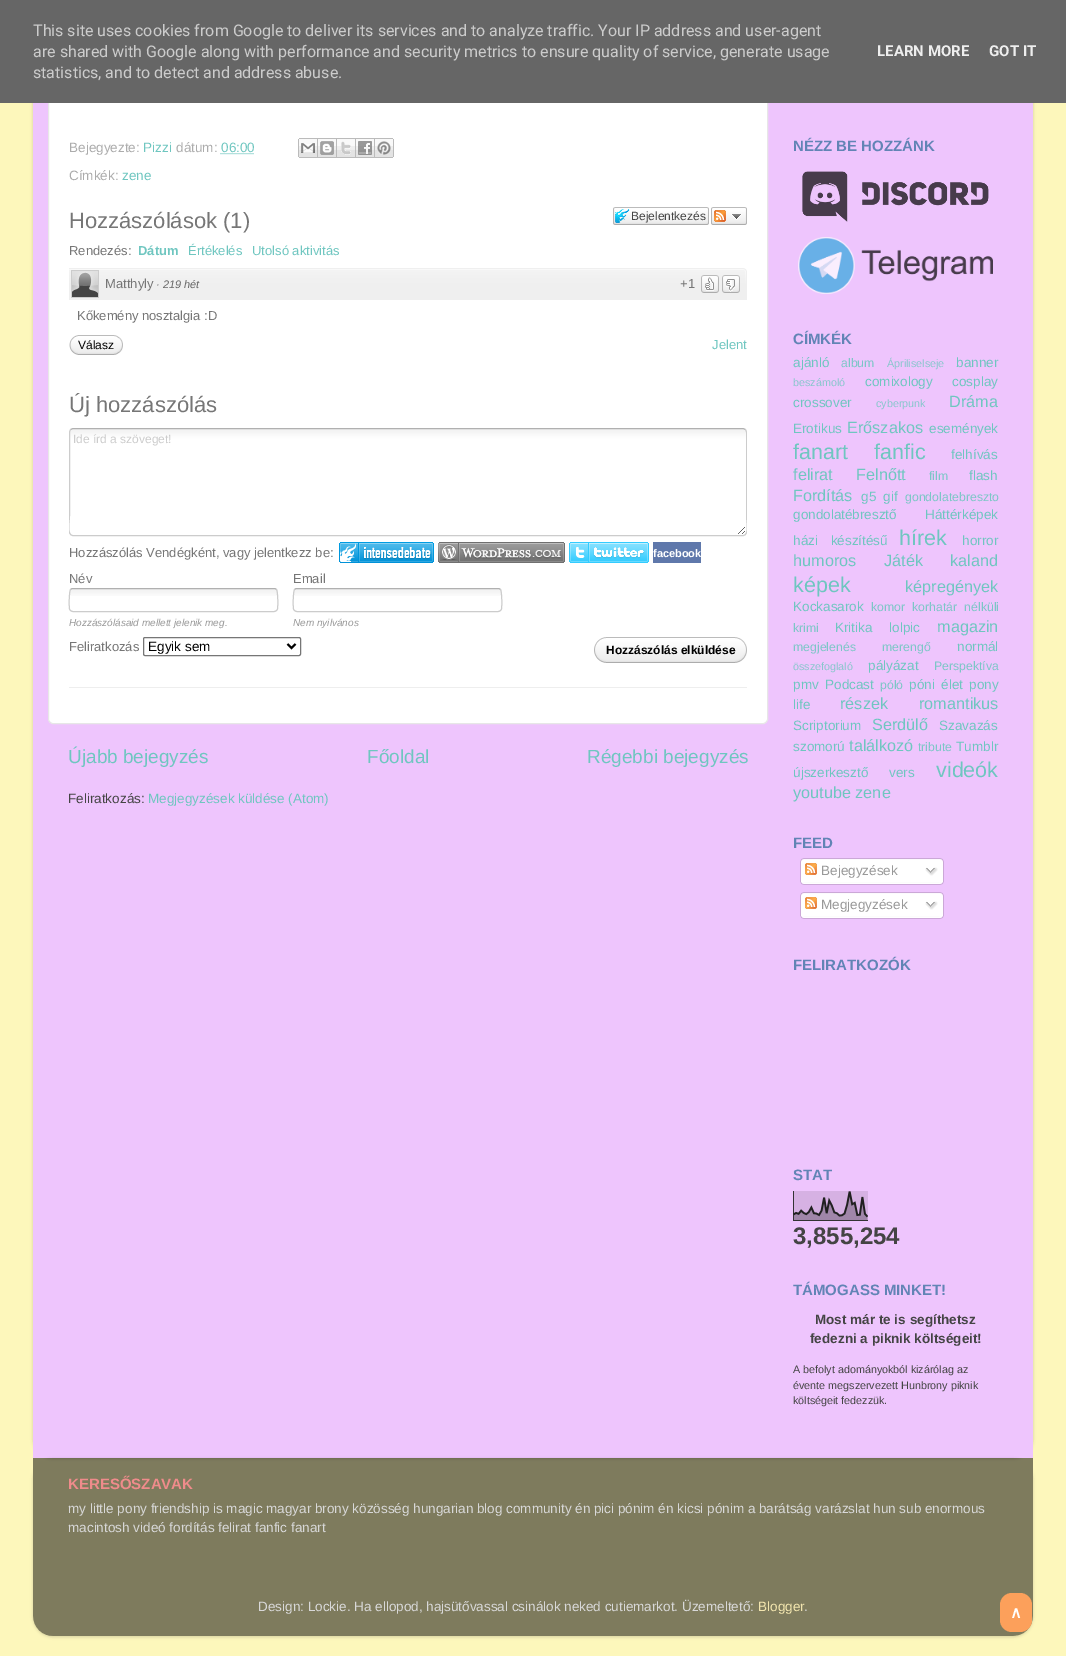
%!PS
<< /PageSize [1066 1656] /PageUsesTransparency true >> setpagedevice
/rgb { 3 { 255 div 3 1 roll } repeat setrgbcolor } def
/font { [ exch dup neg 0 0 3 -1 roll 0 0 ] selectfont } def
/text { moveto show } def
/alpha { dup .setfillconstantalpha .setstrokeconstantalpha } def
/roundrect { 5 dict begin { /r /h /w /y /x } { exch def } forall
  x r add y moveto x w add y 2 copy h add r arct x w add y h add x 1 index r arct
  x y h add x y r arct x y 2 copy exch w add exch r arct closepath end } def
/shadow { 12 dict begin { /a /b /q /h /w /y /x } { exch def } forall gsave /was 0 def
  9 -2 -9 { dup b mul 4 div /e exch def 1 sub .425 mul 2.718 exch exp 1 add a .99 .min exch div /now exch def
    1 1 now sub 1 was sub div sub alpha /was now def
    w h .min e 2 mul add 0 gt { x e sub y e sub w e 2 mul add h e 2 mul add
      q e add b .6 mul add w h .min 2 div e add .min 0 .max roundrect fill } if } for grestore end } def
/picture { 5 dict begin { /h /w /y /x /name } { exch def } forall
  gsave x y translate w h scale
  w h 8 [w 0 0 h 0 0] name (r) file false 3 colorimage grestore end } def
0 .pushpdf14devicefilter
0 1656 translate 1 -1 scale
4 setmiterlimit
253 247 187 rgb
0 0 1066 1656 rectfill
0 0 0 rgb
33 -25 1000 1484 20 1.5 0.15 shadow
238 197 253 rgb
33 103 1000 1355 rectfill
255 255 255 rgb
48.5 -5.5 719 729 4.5 roundrect gsave fill grestore
231 231 231 rgb
stroke
102 102 102 rgb
0 0 1066 103 rectfill
111 198 192 rgb
[1 1] 0 setdash
220.5 153.5 moveto 34 0 rlineto stroke
(img_01.rgb) 298 138 20 20 picture
(img_02.rgb) 318 138 19 20 picture
(img_03.rgb) 337 138 19 20 picture
(img_04.rgb) 356 138 19 20 picture
(img_05.rgb) 375 138 19 20 picture
(img_06.rgb) 613 207 93 18 picture
(img_07.rgb) 706 207 3 18 picture
(img_08.rgb) 711 207 36 18 picture
(img_09.rgb) 69 268 678 32 picture
204 204 204 rgb
71 270 28 28 rectfill
(img_10.rgb) 72 271 26 26 picture
(img_11.rgb) 701 275 18 18 picture
(img_12.rgb) 722 275 18 18 picture
(img_13.rgb) 69 335 9 20 picture
(img_14.rgb) 78 335 45 20 picture
(img_15.rgb) 70 429 677 105 picture
176 176 176 rgb
[] 0 setdash
70.5 429.5 moveto 2.5 -1 rlineto 670 0 rlineto 2.5 1 rlineto stroke
gsave
69 428 678 112 rectclip
204 204 204 rgb
745.5 429.5 moveto 1 2.5 rlineto 0 83.5 rlineto 0 6.5 3 20 -3.5 20 rcurveto -670 0 rlineto -6.5 0 -3.5 -13.5 -3.5 -20 rcurveto 0 -83.5 rlineto 1 -2.5 rlineto stroke
grestore
(img_16.rgb) 339 542 95 21 picture
(img_17.rgb) 438 542 127 21 picture
(img_18.rgb) 569 542 80 21 picture
95 120 171 rgb
653 542 48 21 rectfill
(img_19.rgb) 70 589 208 7 picture
176 176 176 rgb
70.5 589.5 moveto 0.5 -0.5 1.5 -1 2.5 -1 rcurveto 201 0 rlineto 1 0 2 0.5 2.5 1 rcurveto stroke
204 204 204 rgb
276.5 589.5 moveto 1.5 2 1.5 17.5 1 19.5 rcurveto -0.5 1.5 -2 2.5 -3.5 2.5 rcurveto -201 0 rlineto -1.5 0 -3 -1 -3.5 -2.5 rcurveto -0.5 -2 -0.5 -17.5 1 -19.5 rcurveto stroke
(img_19.rgb) 294 589 208 7 picture
176 176 176 rgb
294.5 589.5 moveto 0.5 -0.5 1.5 -1 2.5 -1 rcurveto 201 0 rlineto 1 0 2 0.5 2.5 1 rcurveto stroke
204 204 204 rgb
500.5 589.5 moveto 1.5 2 1.5 17.5 1 19.5 rcurveto -0.5 1.5 -2 2.5 -3.5 2.5 rcurveto -201 0 rlineto -1.5 0 -3 -1 -3.5 -2.5 rcurveto -0.5 -2 -0.5 -17.5 1 -19.5 rcurveto stroke
118 118 118 rgb
143.5 637.5 157 18 1.5 roundrect stroke
0 0 0 rgb
2 setlinewidth
287.5 644 moveto 4 4 rlineto 4 -4 rlineto stroke
(img_20.rgb) 594 637 12 26 picture
(img_21.rgb) 606 637 141 26 picture
238 238 238 rgb
69 687 678 1 rectfill
(img_22.rgb) 802 171 187 51 picture
(img_23.rgb) 798 237 195 57 picture
(img_24.rgb) 800 858 144 24 picture
(img_25.rgb) 805 863 12 12 picture
(img_26.rgb) 925 867 13 9 picture
(img_27.rgb) 800 882 144 3 picture
(img_24.rgb) 800 892 144 24 picture
(img_25.rgb) 805 897 12 12 picture
(img_26.rgb) 925 901 13 9 picture
(img_27.rgb) 800 916 144 3 picture
(img_28.rgb) 793 1191 75 30 picture
gsave
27 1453 moveto 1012 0 rlineto 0 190 rlineto -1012 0 rlineto closepath 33 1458 moveto 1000 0 rlineto 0 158 rlineto 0 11 -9 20 -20 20 rcurveto -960 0 rlineto -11 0 -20 -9 -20 -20 rcurveto closepath eoclip newpath
0 0 0 rgb
33 1459 1000 178 20 1.5 0.15 shadow
grestore
(img_29.rgb) 33 1458 1000 178 picture
252 160 91 rgb
1000 1593 32 39 12 roundrect fill
/Roboto-Regular 16 font
204 204 204 rgb
(This site uses cookies from Google to deliver its services and to analyze traffic. Your IP address and user-agent) 33 36 text
(are shared with Google along with performance and security metrics to ensure quality of service, generate usage) 33 57 text
(statistics, and to detect and address abuse.) 33 78 text
/Roboto-Bold 15 font
238 238 238 rgb
(LEARN MORE) 877 56 text
(GOT IT) 989 56 text
/LiberationSans-Regular 13.5 font
172 172 172 rgb
(Bejegyezte:) 69 152 text
111 198 192 rgb
(Pizzi) 143 152 text
172 172 172 rgb
(dátum:) 176 152 text
111 198 192 rgb
(06:00) 221 152 text
172 172 172 rgb
(Címkék:) 69 180 text
111 198 192 rgb
(zene) 122 180 text
/LiberationSans-Regular 22 font
118 118 118 rgb
(Hozzászólások \(1\)) 69 228 text
/LiberationSans-Regular 12 font
68 68 68 rgb
(Bejelentkezés) 631 220 text
/LiberationSans-Regular 13 font
118 118 118 rgb
(Rendezés:) 69 255 text
/LiberationSans-Bold 13 font
111 198 192 rgb
(Dátum) 138 255 text
/LiberationSans-Regular 13 font
(Értékelés) 188 255 text
(Utolsó aktivitás) 252 255 text
118 118 118 rgb
(Matthyly) 105 288 text
/LiberationSans-Italic 11 font
102 102 102 rgb
(· 219 hét) 156 288 text
/LiberationSans-Regular 13 font
118 118 118 rgb
(+1) 680 288 text
(Kőkemény nosztalgia :D) 77 320 text
/LiberationSans-Regular 12 font
0 0 0 rgb
(Válasz) 78 349 text
/LiberationSans-Regular 13 font
111 198 192 rgb
(Jelent) 712 349 text
/LiberationSans-Regular 22 font
118 118 118 rgb
(Új hozzászólás) 69 412 text
/LiberationSans-Regular 12 font
204 204 204 rgb
(Ide írd a szöveget!) 73 443 text
/LiberationSans-Regular 13 font
118 118 118 rgb
(Hozzászólás Vendégként, vagy jelentkezz be:) 69 557 text
/LiberationSans-Bold 11 font
255 255 255 rgb
(facebook) 653 557 text
/LiberationSans-Regular 13 font
118 118 118 rgb
(Név) 69 583 text
(Email) 293 583 text
/LiberationSans-Italic 10 font
153 153 153 rgb
(Hozzászólásaid mellett jelenik meg.) 69 626 text
(Nem nyilvános) 293 626 text
/LiberationSans-Regular 13 font
118 118 118 rgb
(Feliratkozás) 69 651 text
/LiberationSans-Regular 13.5 font
0 0 0 rgb
(Egyik sem) 148 651 text
/LiberationSans-Bold 12 font
(Hozzászólás elküldése) 606 654 text
/LiberationSans-Regular 19 font
111 198 192 rgb
(Újabb bejegyzés) 68 763 text
(Főoldal) 367 763 text
(Régebbi bejegyzés) 587 763 text
/LiberationSans-Regular 13.5 font
68 68 68 rgb
(Feliratkozás:) 68 803 text
111 198 192 rgb
(Megjegyzések küldése \(Atom\)) 148 803 text
/LiberationSans-Bold 15 font
98 132 181 rgb
(NÉZZ BE HOZZÁNK) 793 151 text
(CÍMKÉK) 793 344 text
/LiberationSans-Regular 13.5 font
111 198 192 rgb
(ajánló) 793 367 text
/LiberationSans-Regular 12.25 font
124 198 198 rgb
(album) 841 367 text
/LiberationSans-Regular 10.75 font
136 198 204 rgb
(Ápriliselseje) 887 367 text
/LiberationSans-Regular 13.5 font
111 198 192 rgb
(banner) 956 367 text
/LiberationSans-Regular 10.75 font
136 198 204 rgb
(beszámoló) 793 386 text
/LiberationSans-Regular 13.5 font
111 198 192 rgb
(comixology) 865 386 text
(cosplay) 952 386 text
(crossover) 793 407 text
/LiberationSans-Regular 10.75 font
136 198 204 rgb
(cyberpunk) 876 407 text
/LiberationSans-Regular 16.25 font
111 198 192 rgb
(Dráma) 949 407 text
/LiberationSans-Regular 13.5 font
(Erotikus) 793 433 text
/LiberationSans-Regular 16.25 font
(Erőszakos) 847 433 text
/LiberationSans-Regular 13.5 font
(események) 929 433 text
/LiberationSans-Regular 21.5 font
(fanart) 793 459 text
(fanfic) 874 459 text
/LiberationSans-Regular 13.5 font
(felhívás) 951 459 text
/LiberationSans-Regular 16.25 font
(felirat) 793 480 text
(Felnőtt) 856 480 text
/LiberationSans-Regular 12.25 font
124 198 198 rgb
(film) 929 480 text
/LiberationSans-Regular 13.5 font
111 198 192 rgb
(flash) 969 480 text
/LiberationSans-Regular 16.25 font
(Fordítás) 793 501 text
/LiberationSans-Regular 13.5 font
(g5) 861 501 text
(gif) 883 501 text
/LiberationSans-Regular 12.25 font
124 198 198 rgb
(gondolatebreszto) 905 501 text
/LiberationSans-Regular 13.5 font
111 198 192 rgb
(gondolatébresztő) 793 519 text
(Háttérképek) 925 519 text
793 545 moveto 9 0 32 (házi készítésű) widthshow
/LiberationSans-Regular 21.5 font
(hírek) 899 545 text
/LiberationSans-Regular 13.5 font
(horror) 962 545 text
/LiberationSans-Regular 16.25 font
(humoros) 793 566 text
(Játék) 884 566 text
(kaland) 950 566 text
/LiberationSans-Regular 21.5 font
(képek) 793 592 text
/LiberationSans-Regular 16.25 font
(képregények) 905 592 text
/LiberationSans-Regular 13.5 font
(Kockasarok) 793 611 text
/LiberationSans-Regular 12.25 font
124 198 198 rgb
(komor) 871 611 text
912 611 moveto 4 0 32 (korhatár nélküli) widthshow
(krimi) 793 632 text
/LiberationSans-Regular 13.5 font
111 198 192 rgb
(Kritika) 835 632 text
(lolpic) 889 632 text
/LiberationSans-Regular 16.25 font
(magazin) 937 632 text
/LiberationSans-Regular 12.25 font
124 198 198 rgb
(megjelenés) 793 651 text
(merengő) 882 651 text
/LiberationSans-Regular 13.5 font
111 198 192 rgb
(normál) 957 651 text
/LiberationSans-Regular 10.75 font
136 198 204 rgb
(összefoglaló) 793 670 text
/LiberationSans-Regular 13.5 font
111 198 192 rgb
(pályázat) 868 670 text
/LiberationSans-Regular 12.25 font
124 198 198 rgb
(Perspektíva) 934 670 text
/LiberationSans-Regular 13.5 font
111 198 192 rgb
(pmv) 793 689 text
(Podcast) 825 689 text
/LiberationSans-Regular 12.25 font
124 198 198 rgb
(póló) 880 689 text
/LiberationSans-Regular 13.5 font
111 198 192 rgb
909 689 moveto 3 0 32 (póni élet) widthshow
(pony) 969 689 text
(life) 793 709 text
/LiberationSans-Regular 16.25 font
(részek) 840 709 text
(romantikus) 919 709 text
/LiberationSans-Regular 13.5 font
(Scriptorium) 793 730 text
/LiberationSans-Regular 16.25 font
(Serdülő) 872 730 text
/LiberationSans-Regular 13.5 font
(Szavazás) 939 730 text
(szomorú) 793 751 text
/LiberationSans-Regular 16.25 font
(találkozó) 849 751 text
/LiberationSans-Regular 12.25 font
124 198 198 rgb
(tribute) 918 751 text
/LiberationSans-Regular 13.5 font
111 198 192 rgb
(Tumblr) 956 751 text
(újszerkesztő) 793 777 text
(vers) 889 777 text
/LiberationSans-Regular 21.5 font
(videók) 936 777 text
/LiberationSans-Regular 16.25 font
(youtube zene) 793 798 text
/LiberationSans-Bold 15 font
98 132 181 rgb
(FEED) 793 848 text
/LiberationSans-Regular 13.5 font
153 153 153 rgb
(Bejegyzések) 821 875 text
(Megjegyzések) 821 909 text
/LiberationSans-Bold 15 font
98 132 181 rgb
(FELIRATKOZÓK) 793 970 text
(STAT) 793 1180 text
/LiberationSans-Bold 24 font
68 68 68 rgb
(3,855,254) 793 1244 text
/LiberationSans-Bold 15 font
98 132 181 rgb
(TÁMOGASS MINKET!) 793 1295 text
/LiberationSans-Bold 13.5 font
68 68 68 rgb
(Most már te is segíthetsz) 815 1324 text
(fedezni a piknik költségeit!) 810 1343 text
/LiberationSans-Regular 10.75 font
(A befolyt adományokból kizárólag az) 793 1373 text
(évente megszervezett Hunbrony piknik) 793 1389 text
(költségeit fedezzük.) 793 1404 text
/LiberationSans-Bold 15 font
239 139 139 rgb
(KERESŐSZAVAK) 68 1489 text
/LiberationSans-Regular 13.5 font
216 216 216 rgb
(my little pony friendship is magic magyar brony közösség hungarian blog community én pici pónim én kicsi pónim a barátság varázslat hun sub enormous) 68 1513 text
(macintosh videó fordítás felirat fanfic fanart) 68 1532 text
(Design: Lockie. Ha ellopod, hajsütővassal csinálok neked cutiemarkot. Üzemeltető:) 258 1611 text
242 229 174 rgb
(Blogger) 758 1611 text
216 216 216 rgb
(.) 804 1611 text
/DejaVuSans-Bold 16 font
255 255 255 rgb
(∧) 1010 1618 text
.poppdf14devicefilter showpage
